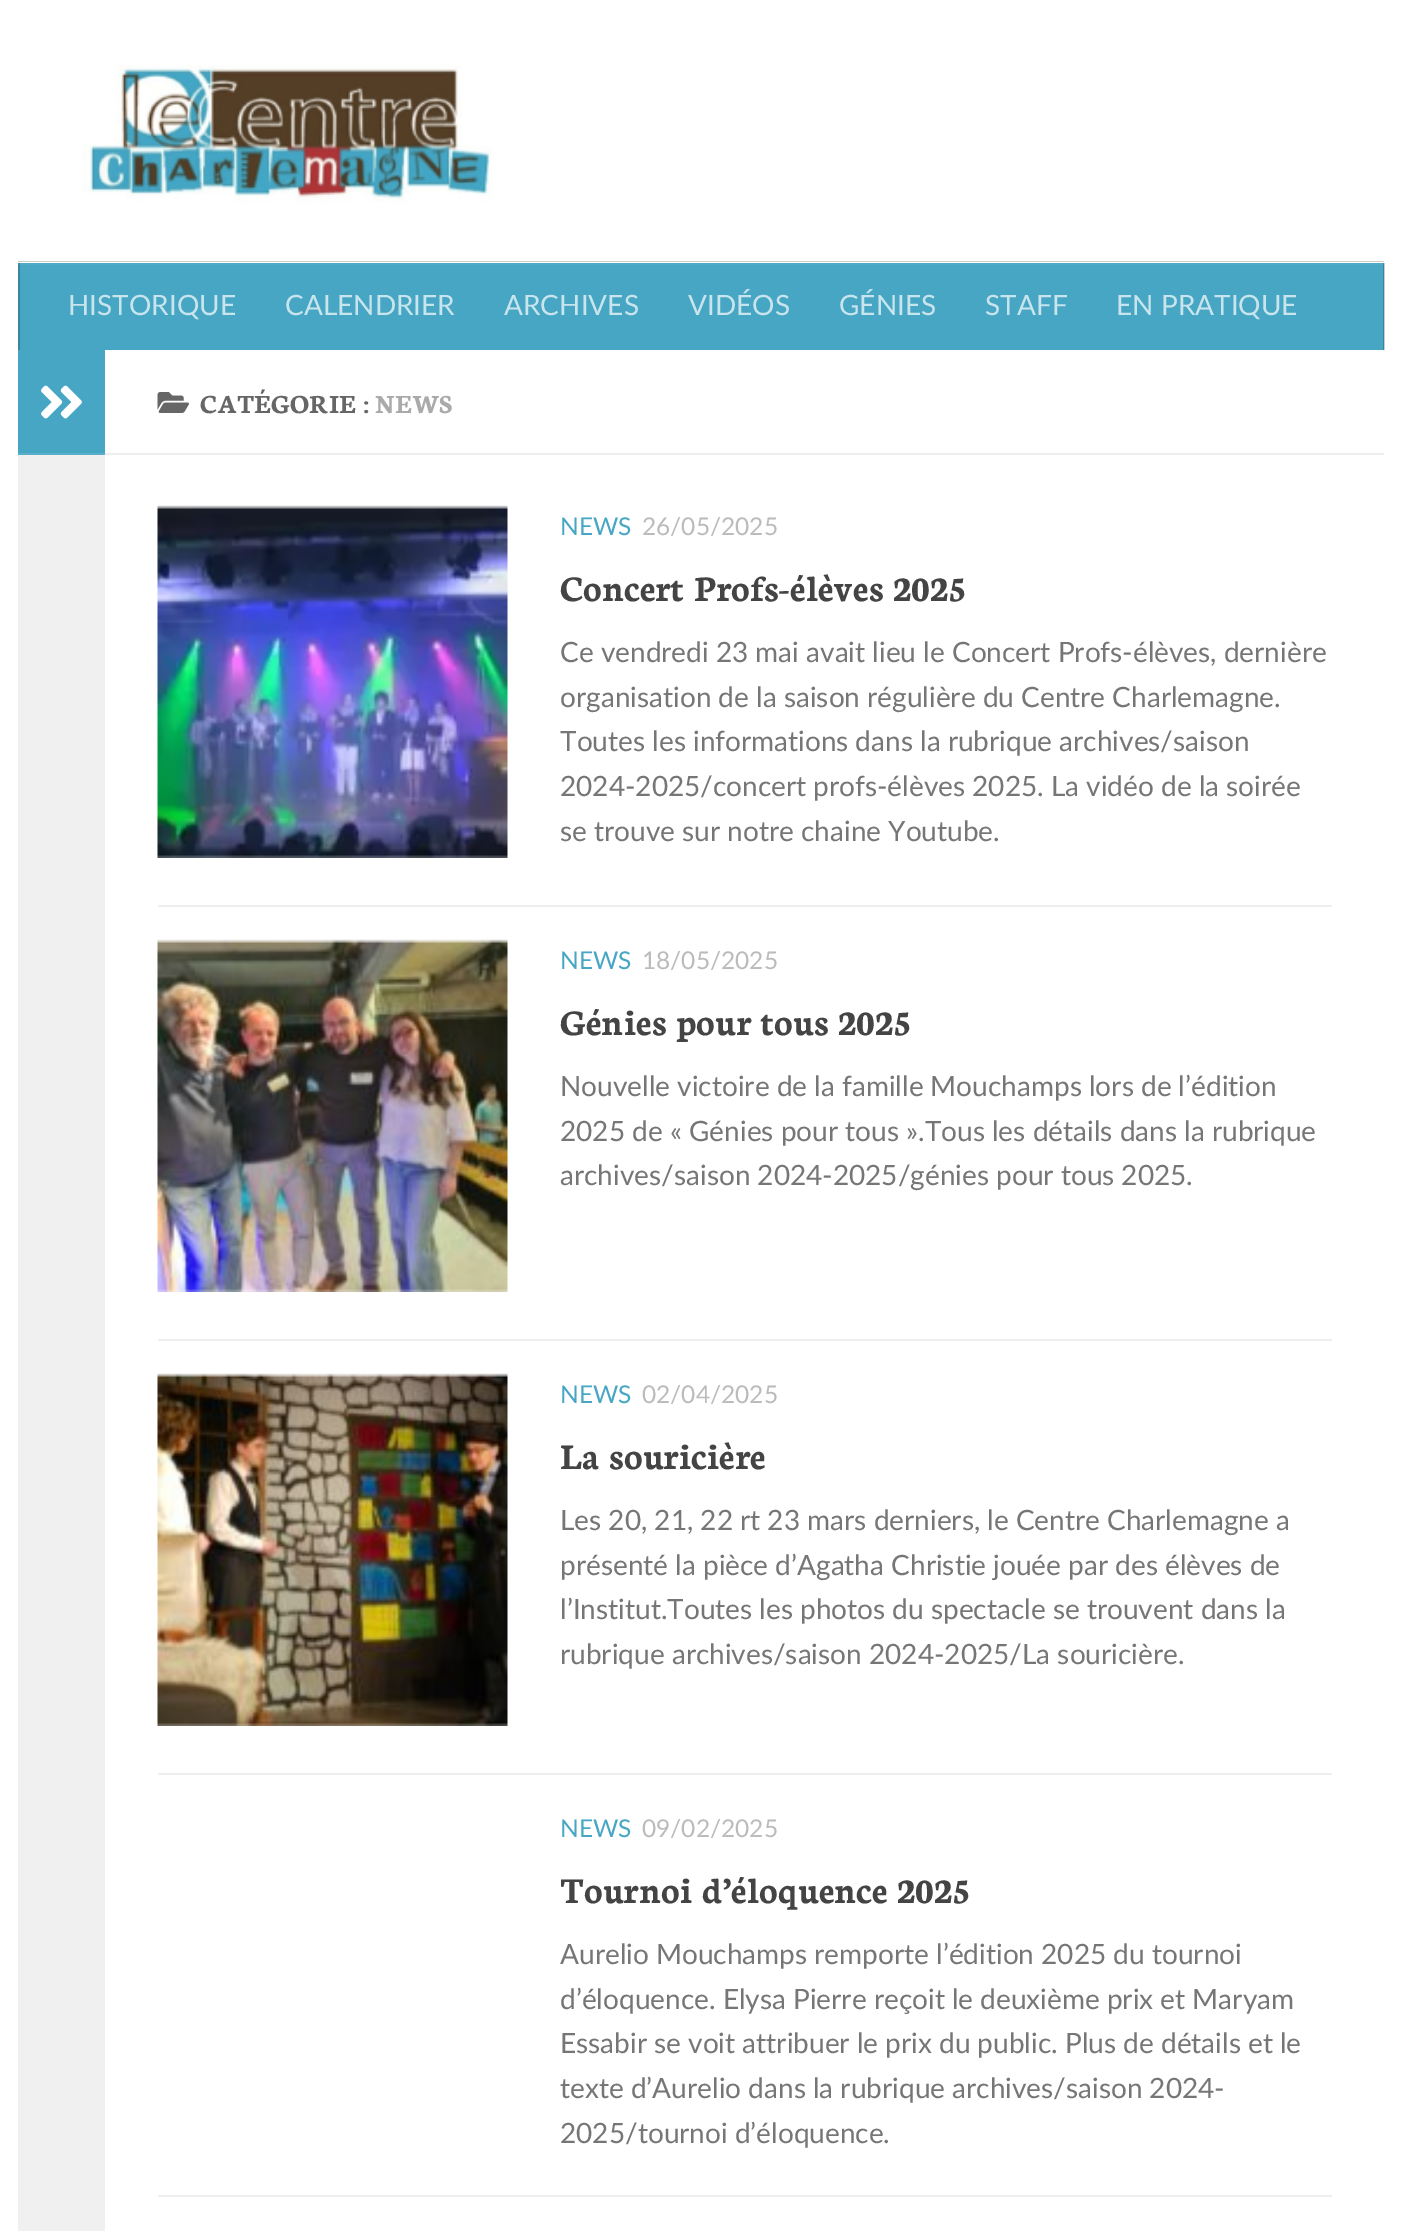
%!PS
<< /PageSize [1401 2231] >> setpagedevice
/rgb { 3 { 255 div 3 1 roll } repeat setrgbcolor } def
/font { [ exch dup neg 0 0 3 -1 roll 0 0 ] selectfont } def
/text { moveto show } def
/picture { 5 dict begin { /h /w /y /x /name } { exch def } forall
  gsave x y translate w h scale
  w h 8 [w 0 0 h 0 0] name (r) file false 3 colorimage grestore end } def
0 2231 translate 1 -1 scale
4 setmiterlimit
255 255 255 rgb
0 0 1401 2231 rectfill
204 204 204 rgb
1384 263 1 87 rectfill
(img_01.rgb) 82 65 410 138 picture
18 261 1366 1 rectfill
70 166 196 rgb
20 265 1363 85 rectfill
79 170 199 rgb
18 263 1366 2 rectfill
56 133 157 rgb
1383 263 1 87 rectfill
66 139 162 rgb
1383 263 1 2 rectfill
56 133 157 rgb
18 263 2 87 rectfill
66 139 162 rgb
18 263 2 2 rectfill
240 240 240 rgb
18 455 87 1776 rectfill
70 166 196 rgb
18 350 87 103 rectfill
89 175 202 rgb
18 453 87 2 rectfill
(img_02.rgb) 41 385 41 34 picture
238 238 238 rgb
105 453 1279 2 rectfill
(img_03.rgb) 157 392 32 21 picture
158 905 1174 2 rectfill
(img_04.rgb) 157 505 351 353 picture
158 1339 1174 2 rectfill
(img_05.rgb) 157 939 351 353 picture
158 1773 1174 2 rectfill
(img_06.rgb) 157 1373 351 353 picture
158 2195 1174 2 rectfill
/Lato-Regular 28 font
200 228 237 rgb
(HISTORIQUE) 68 315 text
(CALENDRIER) 285 315 text
(ARCHIVES) 504 315 text
(VIDÉOS) 688 315 text
(GÉNIES) 839 315 text
(STAFF) 985 315 text
(EN PRATIQUE) 1116 315 text
/Neuton-Bold 28 font
102 102 102 rgb
(CATÉGORIE :) 200 413 text
170 170 170 rgb
(NEWS) 375 413 text
/Lato-Regular 24.5 font
70 166 196 rgb
(NEWS) 560 535 text
187 187 187 rgb
(26/05/2025) 642 535 text
/Neuton-Bold 38.5 font
68 68 68 rgb
(Concert Profs-élèves 2025) 560 601 text
/Lato-Regular 28 font
118 118 118 rgb
(Ce vendredi 23 mai avait lieu le Concert Profs-élèves, dernière) 560 662 text
(organisation de la saison régulière du Centre Charlemagne.) 560 707 text
(Toutes les informations dans la rubrique archives/saison) 560 751 text
(2024-2025/concert profs-élèves 2025. La vidéo de la soirée) 560 796 text
(se trouve sur notre chaine Youtube.) 560 841 text
/Lato-Regular 24.5 font
70 166 196 rgb
(NEWS) 560 969 text
187 187 187 rgb
(18/05/2025) 642 969 text
/Neuton-Bold 38.5 font
68 68 68 rgb
(Génies pour tous 2025) 560 1035 text
/Lato-Regular 28 font
118 118 118 rgb
(Nouvelle victoire de la famille Mouchamps lors de l’édition) 560 1096 text
(2025 de « Génies pour tous ».Tous les détails dans la rubrique) 560 1141 text
(archives/saison 2024-2025/génies pour tous 2025.) 560 1185 text
/Lato-Regular 24.5 font
70 166 196 rgb
(NEWS) 560 1403 text
187 187 187 rgb
(02/04/2025) 642 1403 text
/Neuton-Bold 38.5 font
68 68 68 rgb
(La souricière) 560 1469 text
/Lato-Regular 28 font
118 118 118 rgb
(Les 20, 21, 22 rt 23 mars derniers, le Centre Charlemagne a) 560 1530 text
(présenté la pièce d’Agatha Christie jouée par des élèves de) 560 1575 text
(l’Institut.Toutes les photos du spectacle se trouvent dans la) 560 1619 text
(rubrique archives/saison 2024-2025/La souricière.) 560 1664 text
/Lato-Regular 24.5 font
70 166 196 rgb
(NEWS) 560 1837 text
187 187 187 rgb
(09/02/2025) 642 1837 text
/Neuton-Bold 38.5 font
68 68 68 rgb
(Tournoi d’éloquence 2025) 560 1903 text
/Lato-Regular 28 font
118 118 118 rgb
(Aurelio Mouchamps remporte l’édition 2025 du tournoi) 560 1964 text
(d’éloquence. Elysa Pierre reçoit le deuxième prix et Maryam) 560 2009 text
(Essabir se voit attribuer le prix du public. Plus de détails et le) 560 2053 text
(texte d’Aurelio dans la rubrique archives/saison 2024-) 560 2098 text
(2025/tournoi d’éloquence.) 560 2143 text
showpage
